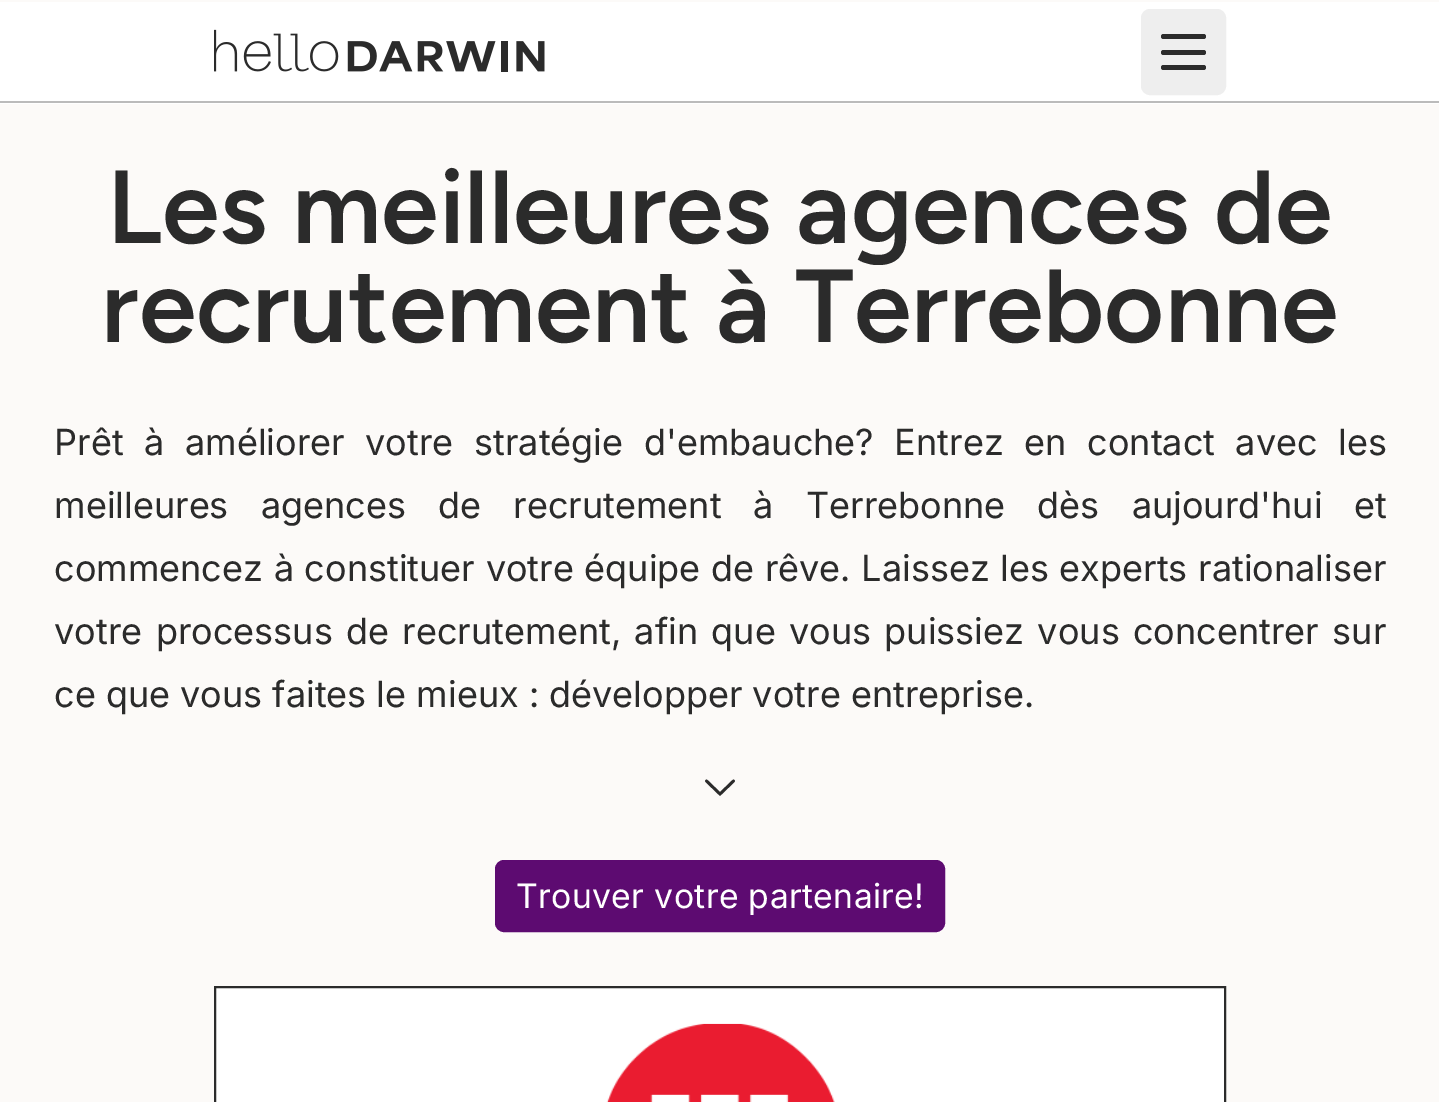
%!PS
<< /PageSize [1439 1102] >> setpagedevice
/rgb { 3 { 255 div 3 1 roll } repeat setrgbcolor } def
/font { [ exch dup neg 0 0 3 -1 roll 0 0 ] selectfont } def
/text { moveto show } def
/roundrect { 5 dict begin { /r /h /w /y /x } { exch def } forall
  x r add y moveto x w add y 2 copy h add r arct x w add y h add x 1 index r arct
  x y h add x y r arct x y 2 copy exch w add exch r arct closepath end } def
/picture { 5 dict begin { /h /w /y /x /name } { exch def } forall
  gsave x y translate w h scale
  w h 8 [w 0 0 h 0 0] name (r) file false 3 colorimage grestore end } def
0 1102 translate 1 -1 scale
4 setmiterlimit
252 250 248 rgb
0 0 1439 1102 rectfill
255 255 255 rgb
0 2 1439 102 rectfill
187 187 187 rgb
0 101 1439 2 rectfill
(img_01.rgb) 214 29 331 43 picture
238 238 238 rgb
1142 10 83 84 8 roundrect gsave fill grestore
2 setlinewidth
stroke
43 43 43 rgb
1161 34 45 5 2.5 roundrect fill
1161 50 45 5 2.5 roundrect fill
1161 65 45 5 2.5 roundrect fill
2.8 setlinewidth
1 setlinecap
733.5 781 moveto -13.5 13 rlineto -13.5 -13 rlineto stroke
93 11 113 rgb
496 861 448 70 8 roundrect gsave fill grestore
2 setlinewidth
0 setlinecap
stroke
255 255 255 rgb
215 987 moveto 1010 0 rlineto 0 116 rlineto -1010 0 rlineto closepath gsave fill grestore
43 43 43 rgb
stroke
(img_02.rgb) 606 1023 229 79 picture
/Figtree-SemiBold 103.5 font
(Les meilleures agences de) 107 243 text
(recrutement à Terrebonne) 101 342 text
/Inter-Regular 36 font
54 455 moveto 10.5 0 32 (Prêt à améliorer votre stratégie d'embauche? Entrez en contact avec les) widthshow
54 518 moveto 22 0 32 (meilleures agences de recrutement à Terrebonne dès aujourd'hui et) widthshow
54 581 moveto 0.5 0 32 (commencez à constituer votre équipe de rêve. Laissez les experts rationaliser) widthshow
54 644 moveto 3.25 0 32 (votre processus de recrutement, afin que vous puissiez vous concentrer sur) widthshow
(ce que vous faites le mieux : développer votre entreprise.) 54 707 text
/Inter-Regular 33.75 font
255 255 255 rgb
516 908 moveto 0.35 0 (Trouver votre partenaire!) ashow
showpage
